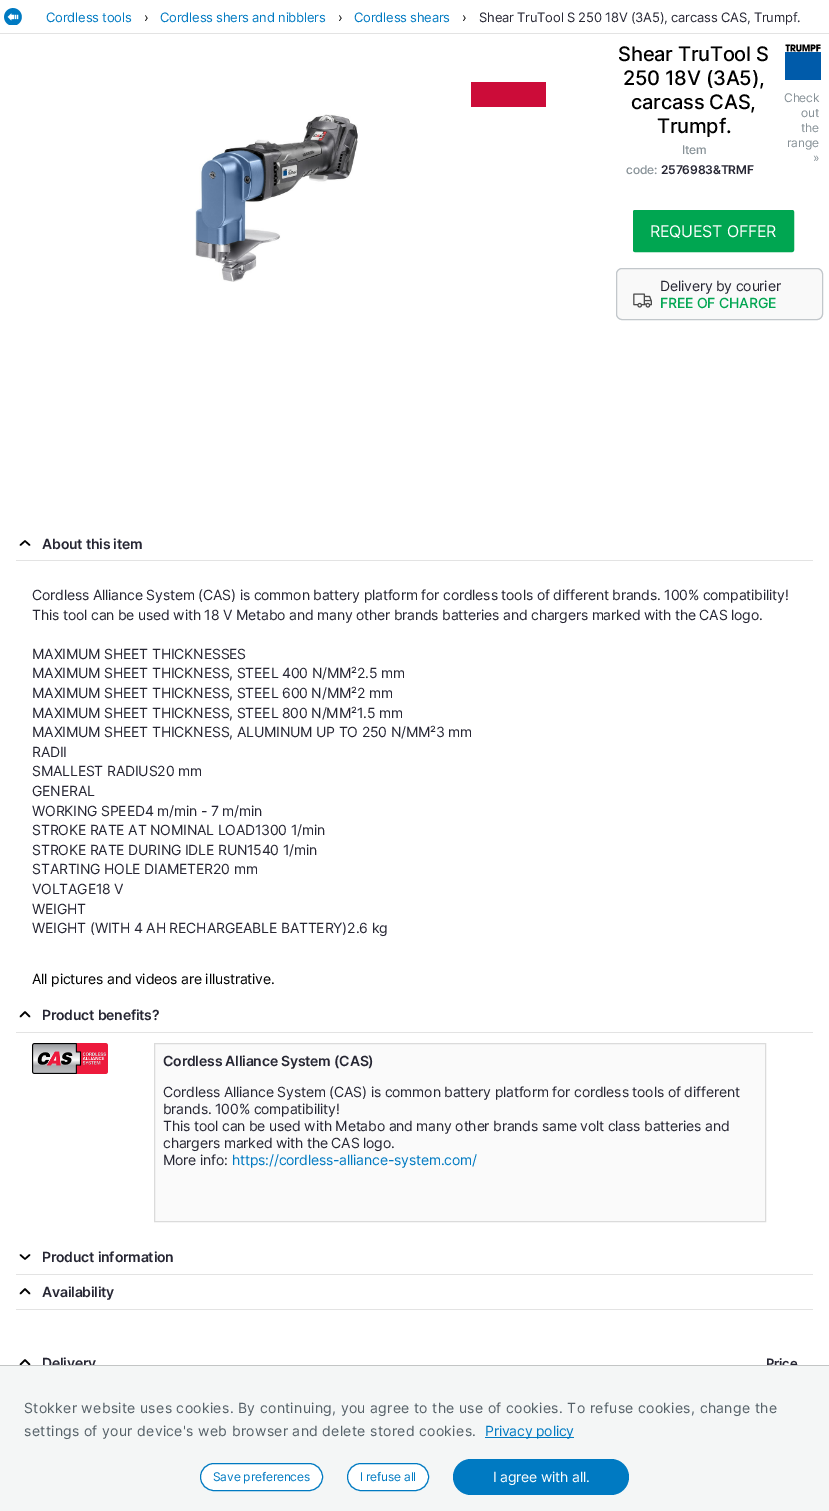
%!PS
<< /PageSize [829 1511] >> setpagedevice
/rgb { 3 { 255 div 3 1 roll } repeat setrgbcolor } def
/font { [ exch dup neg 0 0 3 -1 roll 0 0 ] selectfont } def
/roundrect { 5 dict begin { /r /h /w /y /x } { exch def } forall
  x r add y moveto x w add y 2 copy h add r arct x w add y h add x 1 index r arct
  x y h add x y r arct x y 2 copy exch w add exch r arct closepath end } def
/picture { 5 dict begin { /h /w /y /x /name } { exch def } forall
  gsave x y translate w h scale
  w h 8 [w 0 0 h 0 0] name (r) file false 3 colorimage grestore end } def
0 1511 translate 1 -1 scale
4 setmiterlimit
255 255 255 rgb
0 0 829 1511 rectfill
227 227 227 rgb
0 33 829 1 rectfill
(img_01.rgb) 4 8 18 17 picture
204 12 57 rgb
471 82 75 25 rectfill
(img_02.rgb) 195 114 163 168 picture
(img_03.rgb) 785 44 36 36 picture
0 166 81 rgb
633.5 210.5 160 41 1.5 roundrect gsave fill grestore
stroke
249 249 249 rgb
616.5 268.5 206 51 5.5 roundrect gsave fill grestore
194 199 203 rgb
stroke
(img_04.rgb) 633 293 19 15 picture
227 227 227 rgb
16 560 797 1 rectfill
0 0 0 rgb
1.5 setlinewidth
1 setlinecap
1 setlinejoin
29.5 545 moveto -4.5 -4 rlineto -4.5 4 rlineto stroke
227 227 227 rgb
16 1032 797 1 rectfill
0 0 0 rgb
29.5 1016.5 moveto -4.5 -4.5 rlineto -4.5 4.5 rlineto stroke
(img_05.rgb) 32 1043 76 31 picture
250 250 250 rgb
154.5 1043.5 moveto 611 0 rlineto 0 178 rlineto -611 0 rlineto closepath gsave fill grestore
219 219 219 rgb
1 setlinewidth
0 setlinecap
0 setlinejoin
stroke
227 227 227 rgb
16 1274 797 1 rectfill
0 0 0 rgb
1.5 setlinewidth
1 setlinecap
1 setlinejoin
20.5 1255 moveto 4.5 4 rlineto 4.5 -4 rlineto stroke
227 227 227 rgb
16 1309 797 1 rectfill
0 0 0 rgb
29.5 1293.5 moveto -4.5 -4.5 rlineto -4.5 4.5 rlineto stroke
29.5 1364.5 moveto -4.5 -4.5 rlineto -4.5 4.5 rlineto stroke
/Inter-Regular 13 font
0 122 194 rgb
46 22 moveto -0.2 0 (Cordless tools) ashow
0 0 0 rgb
144 22 moveto -0.2 0 (›) ashow
0 122 194 rgb
160 22 moveto -0.2 0 (Cordless shers and nibblers) ashow
0 0 0 rgb
338 22 moveto -0.2 0 (›) ashow
0 122 194 rgb
354 22 moveto -0.2 0 (Cordless shears) ashow
0 0 0 rgb
462 22 moveto -0.2 0 (›) ashow
38 38 51 rgb
479 22 moveto -0.2 0 (Shear TruTool S 250 18V \(3A5\), carcass CAS, Trumpf.) ashow
/Inter-Medium 20 font
0 0 0 rgb
618 61 moveto -0.2 0 (Shear TruTool S) ashow
623 85 moveto -0.2 0 (250 18V \(3A5\),) ashow
631 109 moveto -0.2 0 (carcass CAS,) ashow
657 133 moveto -0.2 0 (Trumpf.) ashow
/Inter-Medium 12 font
135 145 151 rgb
682 154 moveto -0.2 0 (Item) ashow
626 174 moveto -0.2 0 (code:) ashow
/Inter-SemiBold 12 font
38 38 51 rgb
661 174 moveto -0.2 0 (2576983&TRMF) ashow
/Inter-Regular 12 font
135 145 151 rgb
784 102 moveto -0.2 0 (Check) ashow
801 117 moveto -0.2 0 (out) ashow
801 132 moveto -0.2 0 (the) ashow
787 147 moveto -0.2 0 (range) ashow
813 162 moveto -0.2 0 (») ashow
/Inter-Regular 16 font
255 255 255 rgb
650 237 moveto -0.2 0 (REQUEST OFFER) ashow
/Inter-Regular 14 font
38 38 51 rgb
660 291 moveto -0.2 0 (Delivery by courier) ashow
/Inter-Medium 14 font
0 166 81 rgb
660 308 moveto -0.2 0 (FREE OF CHARGE) ashow
/Inter-SemiBold 14 font
38 38 51 rgb
42 549 moveto -0.2 0 (About this item) ashow
/Inter-Regular 14 font
32 600 moveto -0.2 0 (Cordless Alliance System \(CAS\) is common battery platform for cordless tools of different brands. 100% compatibility!) ashow
32 620 moveto -0.2 0 (This tool can be used with 18 V Metabo and many other brands batteries and chargers marked with the CAS logo.) ashow
32 659 moveto -0.2 0 (MAXIMUM SHEET THICKNESSES) ashow
32 678 moveto -0.2 0 (MAXIMUM SHEET THICKNESS, STEEL 400 N/MM²2.5 mm) ashow
32 698 moveto -0.2 0 (MAXIMUM SHEET THICKNESS, STEEL 600 N/MM²2 mm) ashow
32 718 moveto -0.2 0 (MAXIMUM SHEET THICKNESS, STEEL 800 N/MM²1.5 mm) ashow
32 737 moveto -0.2 0 (MAXIMUM SHEET THICKNESS, ALUMINUM UP TO 250 N/MM²3 mm) ashow
32 757 moveto -0.2 0 (RADII) ashow
32 776 moveto -0.2 0 (SMALLEST RADIUS20 mm) ashow
32 796 moveto -0.2 0 (GENERAL) ashow
32 816 moveto -0.2 0 (WORKING SPEED4 m/min - 7 m/min) ashow
32 835 moveto -0.2 0 (STROKE RATE AT NOMINAL LOAD1300 1/min) ashow
32 855 moveto -0.2 0 (STROKE RATE DURING IDLE RUN1540 1/min) ashow
32 874 moveto -0.2 0 (STARTING HOLE DIAMETER20 mm) ashow
32 894 moveto -0.2 0 (VOLTAGE18 V) ashow
32 914 moveto -0.2 0 (WEIGHT) ashow
32 933 moveto -0.2 0 (WEIGHT \(WITH 4 AH RECHARGEABLE BATTERY\)2.6 kg) ashow
0 0 0 rgb
32 984 moveto -0.2 0 (All pictures and videos are illustrative.) ashow
/Inter-SemiBold 14 font
38 38 51 rgb
42 1020 moveto -0.2 0 (Product benefits?) ashow
163 1066 moveto -0.2 0 (Cordless Alliance System \(CAS\)) ashow
/Inter-Regular 14 font
163 1097 moveto -0.2 0 (Cordless Alliance System \(CAS\) is common battery platform for cordless tools of different) ashow
163 1114 moveto -0.2 0 (brands. 100% compatibility!) ashow
163 1131 moveto -0.2 0 (This tool can be used with Metabo and many other brands same volt class batteries and) ashow
163 1148 moveto -0.2 0 (chargers marked with the CAS logo.) ashow
163 1165 moveto -0.2 0 (More info:) ashow
0 122 194 rgb
232 1165 moveto -0.2 0 (https://cordless-alliance-system.com/) ashow
/Inter-SemiBold 14 font
38 38 51 rgb
42 1262 moveto -0.2 0 (Product information) ashow
42 1297 moveto -0.2 0 (Availability) ashow
42 1368 moveto -0.2 0 (Delivery) ashow
/Inter-SemiBold 13 font
766 1368 moveto -0.2 0 (Price) ashow
244 246 246 rgb
0 1366 829 145 rectfill
195 197 197 rgb
0 1365 829 1 rectfill
/Inter-Regular 14 font
86 97 104 rgb
24 1413 moveto 0.32 0 (Stokker website uses cookies. By continuing, you agree to the use of cookies. To refuse cookies, change the) ashow
24 1436 moveto 0.32 0 (settings of your device's web browser and delete stored cookies.) ashow
0 122 194 rgb
485 1437 89 1 rectfill
485 1436 moveto -0.2 0 (Privacy policy) ashow
255 255 255 rgb
200.5 1463.5 122 27 13.5 roundrect gsave fill grestore
0 122 194 rgb
1 setlinewidth
0 setlinecap
0 setlinejoin
stroke
/Inter-Regular 12 font
213 1481 moveto -0.2 0 (Save preferences) ashow
255 255 255 rgb
347.5 1463.5 81 27 13.5 roundrect gsave fill grestore
0 122 194 rgb
stroke
360 1481 moveto -0.2 0 (I refuse all) ashow
453 1459 176 36 18 roundrect fill
/Inter-Regular 14 font
255 255 255 rgb
493 1482 moveto -0.2 0 (I agree with all.) ashow
showpage
